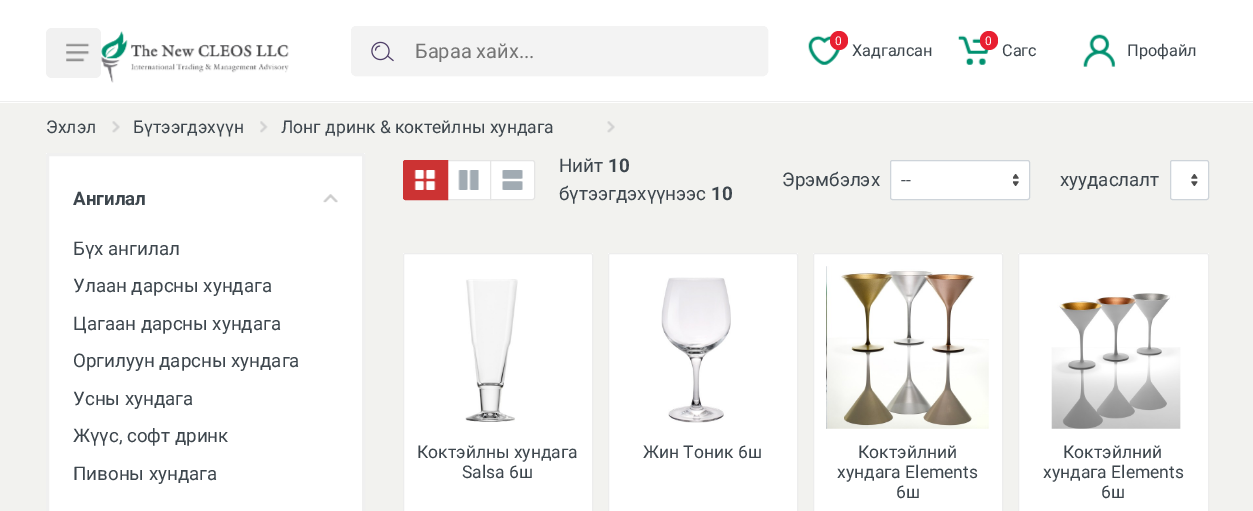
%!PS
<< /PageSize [1253 511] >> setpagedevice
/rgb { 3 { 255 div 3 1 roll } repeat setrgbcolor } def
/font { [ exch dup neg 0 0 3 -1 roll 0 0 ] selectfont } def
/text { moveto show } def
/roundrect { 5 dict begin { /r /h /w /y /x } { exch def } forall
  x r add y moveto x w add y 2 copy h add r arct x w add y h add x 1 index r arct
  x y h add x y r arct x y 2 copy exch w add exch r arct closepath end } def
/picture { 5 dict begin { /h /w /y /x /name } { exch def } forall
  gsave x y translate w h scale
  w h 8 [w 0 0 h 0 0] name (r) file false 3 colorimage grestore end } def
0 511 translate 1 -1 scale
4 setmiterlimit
242 242 239 rgb
0 0 1253 511 rectfill
255 255 255 rgb
0 0 1253 103 rectfill
241 241 241 rgb
46 28 55 50 6 roundrect fill
(img_01.rgb) 66 43 24 19 picture
(img_02.rgb) 101 31 188 52 picture
243 243 243 rgb
351.5 26.5 416 49 4.5 roundrect gsave fill grestore
stroke
(img_03.rgb) 371 41 23 21 picture
(img_04.rgb) 808 35 32 30 picture
232 31 49 rgb
830 31 18 19 9 roundrect fill
(img_05.rgb) 958 35 31 30 picture
980 31 18 19 9 roundrect fill
(img_06.rgb) 1083 34 33 33 picture
238 238 238 rgb
0 101 1253 1 rectfill
(img_07.rgb) 112 121 8 12 picture
(img_08.rgb) 260 121 8 12 picture
(img_09.rgb) 607 121 8 12 picture
255 255 255 rgb
46 153 319 358 rectfill
240 240 240 rgb
3 setlinewidth
47.5 154.5 316 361 1 roundrect stroke
(img_10.rgb) 323 194 15 9 picture
255 255 255 rgb
448 161 42 38 rectfill
229 229 229 rgb
1 setlinewidth
446.5 160.5 44 39 rectstroke
204 51 51 rgb
405.5 160.5 moveto 42 0 rlineto 0 39 rlineto -42 0 rlineto -1 0 -2 -1 -2 -2 rcurveto 0 -35 rlineto 0 -1 1 -2 2 -2 rcurveto closepath gsave fill grestore
stroke
(img_11.rgb) 414 170 22 20 picture
(img_12.rgb) 458 170 21 20 picture
255 255 255 rgb
490.5 160.5 moveto 42 0 rlineto 1 0 2 1 2 2 rcurveto 0 35 rlineto 0 1 -1 2 -2 2 rcurveto -42 0 rlineto closepath gsave fill grestore
229 229 229 rgb
stroke
(img_13.rgb) 502 170 21 20 picture
255 255 255 rgb
891 161 138 38 1 roundrect fill
(img_14.rgb) 1013 174 6 12 picture
206 212 218 rgb
890.5 160.5 139 39 2 roundrect stroke
255 255 255 rgb
1171 161 37 38 1 roundrect fill
(img_15.rgb) 1191 174 7 12 picture
206 212 218 rgb
1170.5 160.5 38 39 2 roundrect stroke
255 255 255 rgb
403 253 190 258 rectfill
(img_16.rgb) 465 279 53 143 picture
237 237 237 rgb
403.5 253.5 189 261 2 roundrect stroke
255 255 255 rgb
608 253 190 258 rectfill
(img_17.rgb) 661 277 70 146 picture
237 237 237 rgb
608.5 253.5 189 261 2 roundrect stroke
255 255 255 rgb
813 253 190 258 rectfill
(img_18.rgb) 826 266 163 163 picture
237 237 237 rgb
813.5 253.5 189 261 2 roundrect stroke
255 255 255 rgb
1018 253 191 258 rectfill
(img_19.rgb) 1051 293 130 136 picture
237 237 237 rgb
1018.5 253.5 190 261 2 roundrect stroke
/Roboto-Regular 20 font
117 117 117 rgb
(Бараа хайх...) 415 58 text
/Roboto-Regular 12 font
255 255 255 rgb
(0) 835 45 text
/Roboto-Regular 16.25 font
61 70 77 rgb
(Хадгалсан) 852 56 text
/Roboto-Regular 12 font
255 255 255 rgb
(0) 985 45 text
/Roboto-Regular 16.25 font
61 70 77 rgb
(Cагс) 1002 56 text
(Профайл) 1127 56 text
/Roboto-Regular 17.5 font
(Эхлэл) 46 133 text
(Бүтээгдэхүүн) 133 133 text
(Лонг дринк & коктейлны хундага) 281 133 text
/Roboto-Bold 18.75 font
(Ангилал) 73 205 text
/Roboto-Regular 18.75 font
(Бүх ангилал) 73 255 text
(Улаан дарсны хундага) 73 292 text
(Цагаан дарсны хундага) 73 330 text
(Оргилуун дарсны хундага) 73 367 text
(Усны хундага) 73 405 text
(Жүүс, софт дринк) 73 442 text
(Пивоны хундага) 73 480 text
(Нийт) 559 172 text
/Roboto-Bold 18.75 font
(10) 608 172 text
/Roboto-Regular 18.75 font
(бүтээгдэхүүнээс) 559 200 text
/Roboto-Bold 18.75 font
(10) 711 200 text
/Roboto-Regular 18.75 font
(Эрэмбэлэх) 782 186 text
/Roboto-Regular 17.5 font
73 80 87 rgb
(--) 901 186 text
/Roboto-Regular 18.75 font
61 70 77 rgb
(хуудаслалт) 1060 186 text
/Roboto-Regular 17.5 font
(Коктэйлны хундага) 417 458 text
(Salsa 6ш) 462 478 text
(Жин Тоник 6ш) 643 458 text
(Коктэйлний) 858 458 text
(хундага Elements) 837 478 text
(6ш) 896 498 text
(Коктэйлний) 1063 458 text
(хундага Elements) 1043 478 text
(6ш) 1101 498 text
showpage
